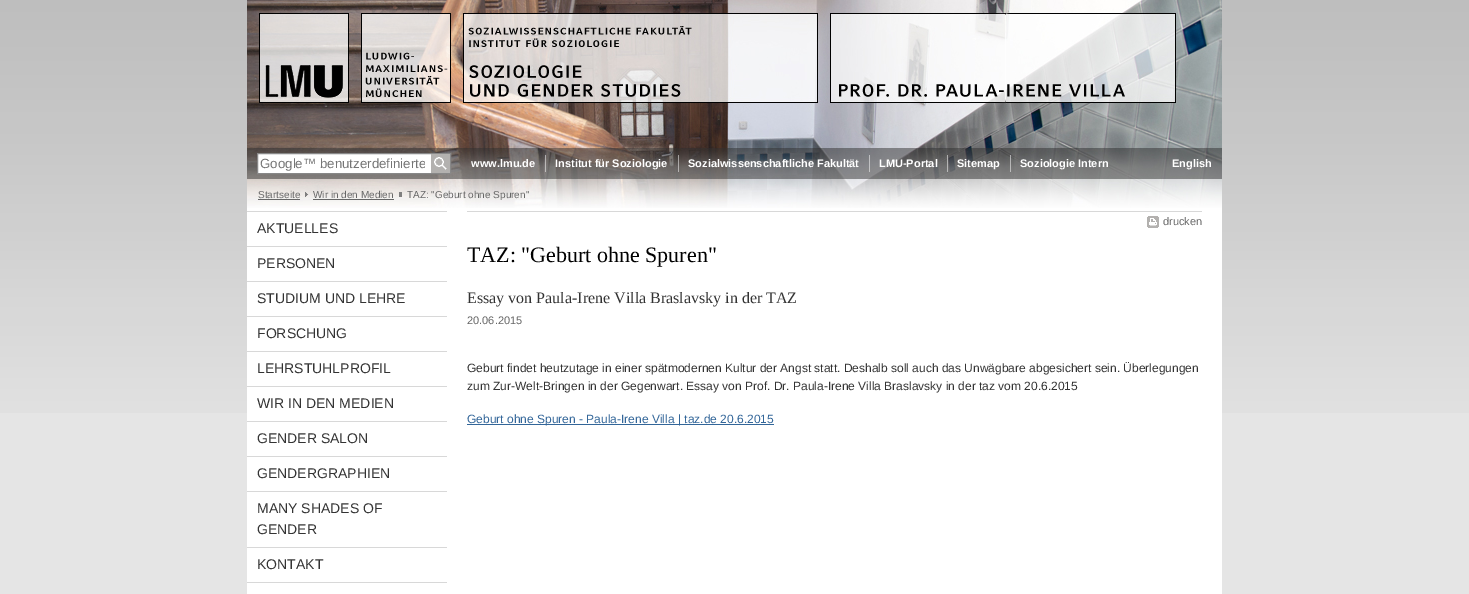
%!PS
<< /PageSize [1469 594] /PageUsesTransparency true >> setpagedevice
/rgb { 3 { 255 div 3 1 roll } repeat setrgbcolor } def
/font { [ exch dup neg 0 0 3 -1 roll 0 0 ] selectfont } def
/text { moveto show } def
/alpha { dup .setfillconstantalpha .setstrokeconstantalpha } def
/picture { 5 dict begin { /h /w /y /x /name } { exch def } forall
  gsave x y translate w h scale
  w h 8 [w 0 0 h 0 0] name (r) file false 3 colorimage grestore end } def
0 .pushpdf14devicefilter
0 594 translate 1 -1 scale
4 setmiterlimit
229 229 229 rgb
0 0 1469 594 rectfill
(img_01.rgb) 0 0 1469 413 picture
255 255 255 rgb
247 208 975 386 rectfill
(img_02.rgb) 247 0 975 148 picture
(img_03.rgb) 247 148 975 31 picture
258 154 173 19 rectfill
136 136 136 rgb
257.5 153.5 193 20 rectstroke
(img_04.rgb) 431 154 19 19 picture
0.5 alpha
255 255 255 rgb
545 155 1 17 rectfill
678 155 1 17 rectfill
869 155 1 17 rectfill
947 155 1 17 rectfill
1010 155 1 17 rectfill
1 alpha
(img_05.rgb) 247 179 975 29 picture
102 102 102 rgb
258 199 42 1 rectfill
(img_06.rgb) 305 192 4 5 picture
313 199 81 1 rectfill
127 127 127 rgb
399 192 3 5 rectfill
216 216 216 rgb
247 211 200 1 rectfill
247 246 200 1 rectfill
247 281 200 1 rectfill
247 316 200 1 rectfill
247 351 200 1 rectfill
247 386 200 1 rectfill
247 421 200 1 rectfill
247 456 200 1 rectfill
247 491 200 1 rectfill
247 547 200 1 rectfill
247 582 200 1 rectfill
467 211 735 1 rectfill
(img_07.rgb) 1147 216 12 12 picture
51 102 153 rgb
467 424 307 1 rectfill
gsave
260 156 165 15 rectclip
/LiberationSans-Regular 13.3 font
117 117 117 rgb
(Google™ benutzerdefinierte) 260 168 text
grestore
/LiberationSans-Bold 11 font
255 255 255 rgb
(www.lmu.de) 471 167 text
(Institut für Soziologie) 555 167 text
(Sozialwissenschaftliche Fakultät) 688 167 text
(LMU-Portal) 879 167 text
(Sitemap) 957 167 text
(Soziologie Intern) 1020 167 text
(English) 1172 167 text
/LiberationSans-Regular 10 font
102 102 102 rgb
(Startseite) 258 198 text
(Wir in den Medien) 313 198 text
(TAZ: "Geburt ohne Spuren") 407 198 text
/LiberationSans-Regular 14 font
51 51 51 rgb
(AKTUELLES) 257 233 text
(PERSONEN) 257 268 text
(STUDIUM UND LEHRE) 257 303 text
(FORSCHUNG) 257 338 text
(LEHRSTUHLPROFIL) 257 373 text
(WIR IN DEN MEDIEN) 257 408 text
(GENDER SALON) 257 443 text
(GENDERGRAPHIEN) 257 478 text
(MANY SHADES OF) 257 513 text
(GENDER) 257 534 text
(KONTAKT) 257 569 text
/LiberationSans-Regular 11 font
102 102 102 rgb
(drucken) 1163 225 text
/LiberationSerif-Regular 22 font
0 0 0 rgb
(TAZ: "Geburt ohne Spuren") 467 262 text
/LiberationSerif-Regular 16 font
51 51 51 rgb
(Essay von Paula-Irene Villa Braslavsky in der TAZ) 467 303 text
/LiberationSans-Regular 11 font
102 102 102 rgb
(20.06.2015) 467 324 text
/LiberationSans-Regular 12 font
51 51 51 rgb
(Geburt findet heutzutage in einer spätmodernen Kultur der Angst statt. Deshalb soll auch das Unwägbare abgesichert sein. Überlegungen) 467 372 text
(zum Zur-Welt-Bringen in der Gegenwart. Essay von Prof. Dr. Paula-Irene Villa Braslavsky in der taz vom 20.6.2015) 467 390 text
51 102 153 rgb
(Geburt ohne Spuren - Paula-Irene Villa | taz.de 20.6.2015) 467 423 text
.poppdf14devicefilter showpage
